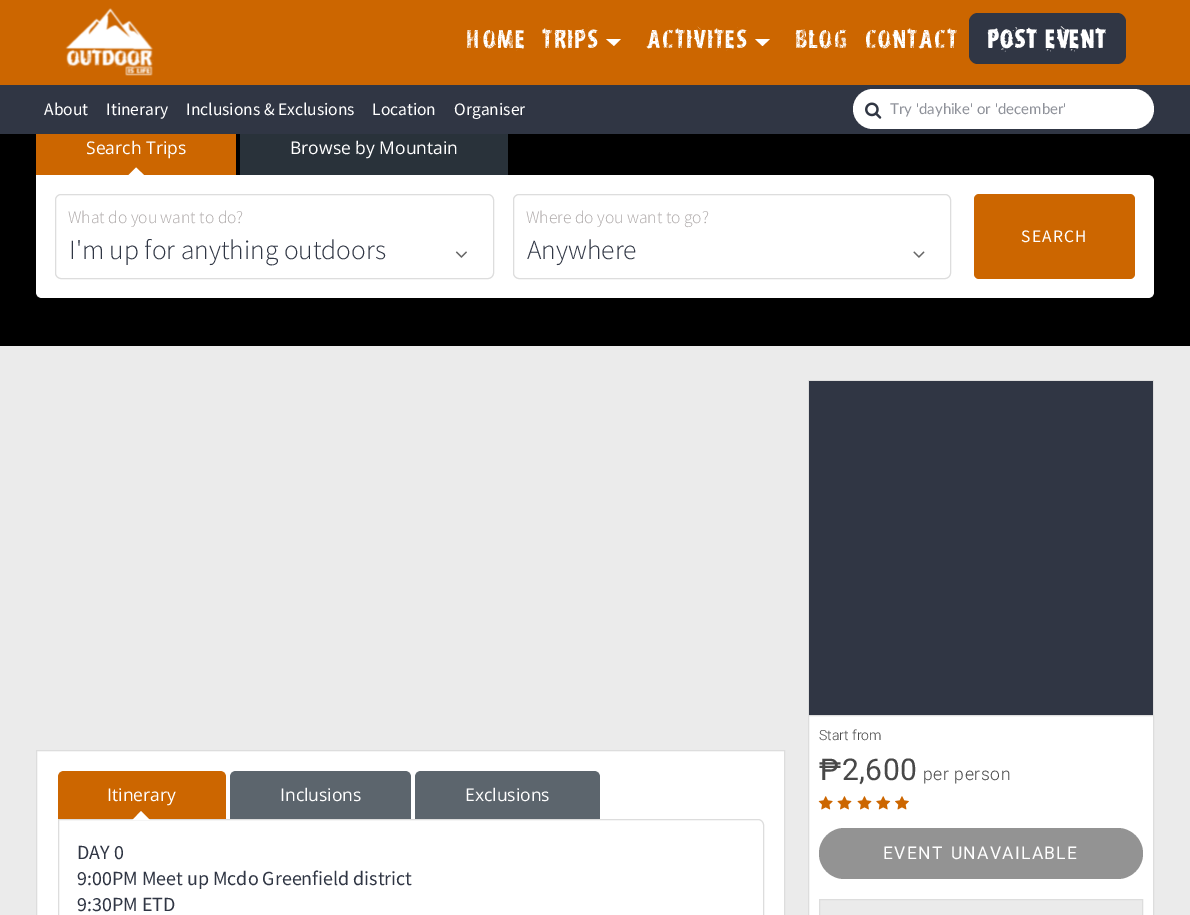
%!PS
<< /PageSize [1190 915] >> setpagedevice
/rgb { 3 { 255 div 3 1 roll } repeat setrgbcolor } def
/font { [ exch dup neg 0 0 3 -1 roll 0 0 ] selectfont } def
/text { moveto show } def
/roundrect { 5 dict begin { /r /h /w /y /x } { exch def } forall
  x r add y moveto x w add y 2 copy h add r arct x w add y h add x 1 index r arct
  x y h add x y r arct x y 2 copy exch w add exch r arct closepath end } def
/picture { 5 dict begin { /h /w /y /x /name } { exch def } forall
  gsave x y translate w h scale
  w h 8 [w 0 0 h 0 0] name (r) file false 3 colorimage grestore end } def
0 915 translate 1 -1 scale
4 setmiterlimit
235 235 235 rgb
0 0 1190 915 rectfill
204 102 0 rgb
0 0 1190 85 rectfill
(img_01.rgb) 65 8 89 68 picture
255 255 255 rgb
606 39 moveto 15 0 rlineto -7 7 rlineto closepath fill
755 39 moveto 15 0 rlineto -7.5 7 rlineto closepath fill
48 54 68 rgb
969 13 157 51 9 roundrect fill
0 85 1190 49 rectfill
255 255 255 rgb
853 89 301 40 20 roundrect fill
(img_02.rgb) 865 102 17 17 picture
0 0 0 rgb
0 134 1190 212 rectfill
204 102 0 rgb
36 134 200 41 rectfill
255 255 255 rgb
36 175 moveto 1112 0 rlineto 3.5 0 6 2.5 6 6 rcurveto 0 111 rlineto 0 3.5 -2.5 6 -6 6 rcurveto -1106 0 rlineto -3.5 0 -6 -2.5 -6 -6 rcurveto closepath fill
145 176 moveto -17.5 0 rlineto 8.5 -8.5 rlineto closepath fill
41 50 58 rgb
240 134 268 41 rectfill
221 221 221 rgb
55.5 194.5 438 84 5.5 roundrect stroke
(img_03.rgb) 455 251 12 7 picture
513.5 194.5 437 84 5.5 roundrect stroke
(img_04.rgb) 913 251 12 7 picture
204 102 0 rgb
974 194 161 85 5 roundrect fill
255 255 255 rgb
36.5 750.5 moveto 748 0 rlineto 0 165 rlineto -748 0 rlineto closepath gsave fill grestore
221 221 221 rgb
stroke
204 102 0 rgb
64 771 moveto 156 0 rlineto 3.5 0 6 2.5 6 6 rcurveto 0 42 rlineto -168 0 rlineto 0 -42 rlineto 0 -3.5 2.5 -6 6 -6 rcurveto closepath fill
221 221 221 rgb
58.5 819.5 moveto 699.5 0 rlineto 3 0 5.5 2.5 5.5 5.5 rcurveto 0 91 rlineto 0 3 -2.5 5.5 -5.5 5.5 rcurveto -694 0 rlineto -3 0 -5.5 -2.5 -5.5 -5.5 rcurveto closepath stroke
255 255 255 rgb
150 820 moveto -17.5 0 rlineto 8.5 -9 rlineto closepath fill
92 101 109 rgb
236 771 moveto 169 0 rlineto 3.5 0 6 2.5 6 6 rcurveto 0 42 rlineto -181 0 rlineto 0 -42 rlineto 0 -3.5 2.5 -6 6 -6 rcurveto closepath fill
421 771 moveto 173 0 rlineto 3.5 0 6 2.5 6 6 rcurveto 0 42 rlineto -185 0 rlineto 0 -42 rlineto 0 -3.5 2.5 -6 6 -6 rcurveto closepath fill
48 54 68 rgb
809 381 344 334 rectfill
221 221 221 rgb
808 380 346 1 rectfill
1153 380 1 335 rectfill
808 380 1 335 rectfill
255 255 255 rgb
808.5 715.5 moveto 345 0 rlineto 0 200 rlineto -345 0 rlineto closepath gsave fill grestore
221 221 221 rgb
stroke
(img_05.rgb) 818 796 15 14 picture
(img_06.rgb) 837 796 15 14 picture
(img_06.rgb) 857 796 15 14 picture
(img_07.rgb) 876 796 15 14 picture
(img_08.rgb) 895 796 14 14 picture
147 147 147 rgb
819 828 324 51 25.5 roundrect fill
235 235 235 rgb
819.5 899.5 moveto 323 0 rlineto 0 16 rlineto -323 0 rlineto closepath gsave fill grestore
221 221 221 rgb
stroke
/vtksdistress-Regular 22.5 font
255 255 255 rgb
466 48 moveto 1.25 0 (HOME) ashow
542 48 moveto 1.25 0 (TRIPS) ashow
647 48 moveto 1.25 0 (ACTIVITES) ashow
795 48 moveto 1.25 0 (BLOG) ashow
865 48 moveto 1.25 0 (CONTACT) ashow
/vtksdistress-Bold 22.5 font
987 48 moveto 1.25 0 (POST EVENT) ashow
/SourceSansPro-Regular 17.5 font
(About) 44 115 text
(Itinerary) 106 115 text
(Inclusions & Exclusions) 186 115 text
(Location) 372 115 text
(Organiser) 454 115 text
/Lato-Regular 15 font
143 146 154 rgb
(Try 'dayhike' or 'december') 890 114 text
/OpenSans-Regular 17.5 font
255 255 255 rgb
(Search Trips) 86 154 text
(Browse by Mountain) 290 154 text
/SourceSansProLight-Light 17.5 font
173 168 168 rgb
(What do you want to do?) 68 223 text
/SourceSansProLight-Light 27.5 font
48 54 68 rgb
(I'm up for anything outdoors) 69 259 text
/SourceSansProLight-Light 17.5 font
173 168 168 rgb
(Where do you want to go?) 526 223 text
/SourceSansProLight-Light 27.5 font
48 54 68 rgb
(Anywhere) 527 259 text
/SourceSansPro-Regular 17.5 font
255 255 255 rgb
1021 242 moveto 1.25 0 (SEARCH) ashow
/OpenSans-Regular 17.5 font
(Itinerary) 107 801 text
(Inclusions) 280 801 text
(Exclusions) 465 801 text
/SourceSansPro-Regular 20 font
48 54 68 rgb
(DAY 0) 77 859 text
(9:00PM Meet up Mcdo Greenfield district) 77 885 text
(9:30PM ETD) 77 911 text
/Roboto-Light 14 font
72 72 72 rgb
(Start from) 819 740 text
/Roboto-Regular 30 font
819 780 moveto 0.6 0 (₱2,600) ashow
/Roboto-Light 17.5 font
923 780 moveto 0.6 0 (per person) ashow
/Roboto-Regular 17.5 font
255 255 255 rgb
883 859 moveto 2 0 32 1.25 0 (EVENT UNAVAILABLE) awidthshow
showpage
